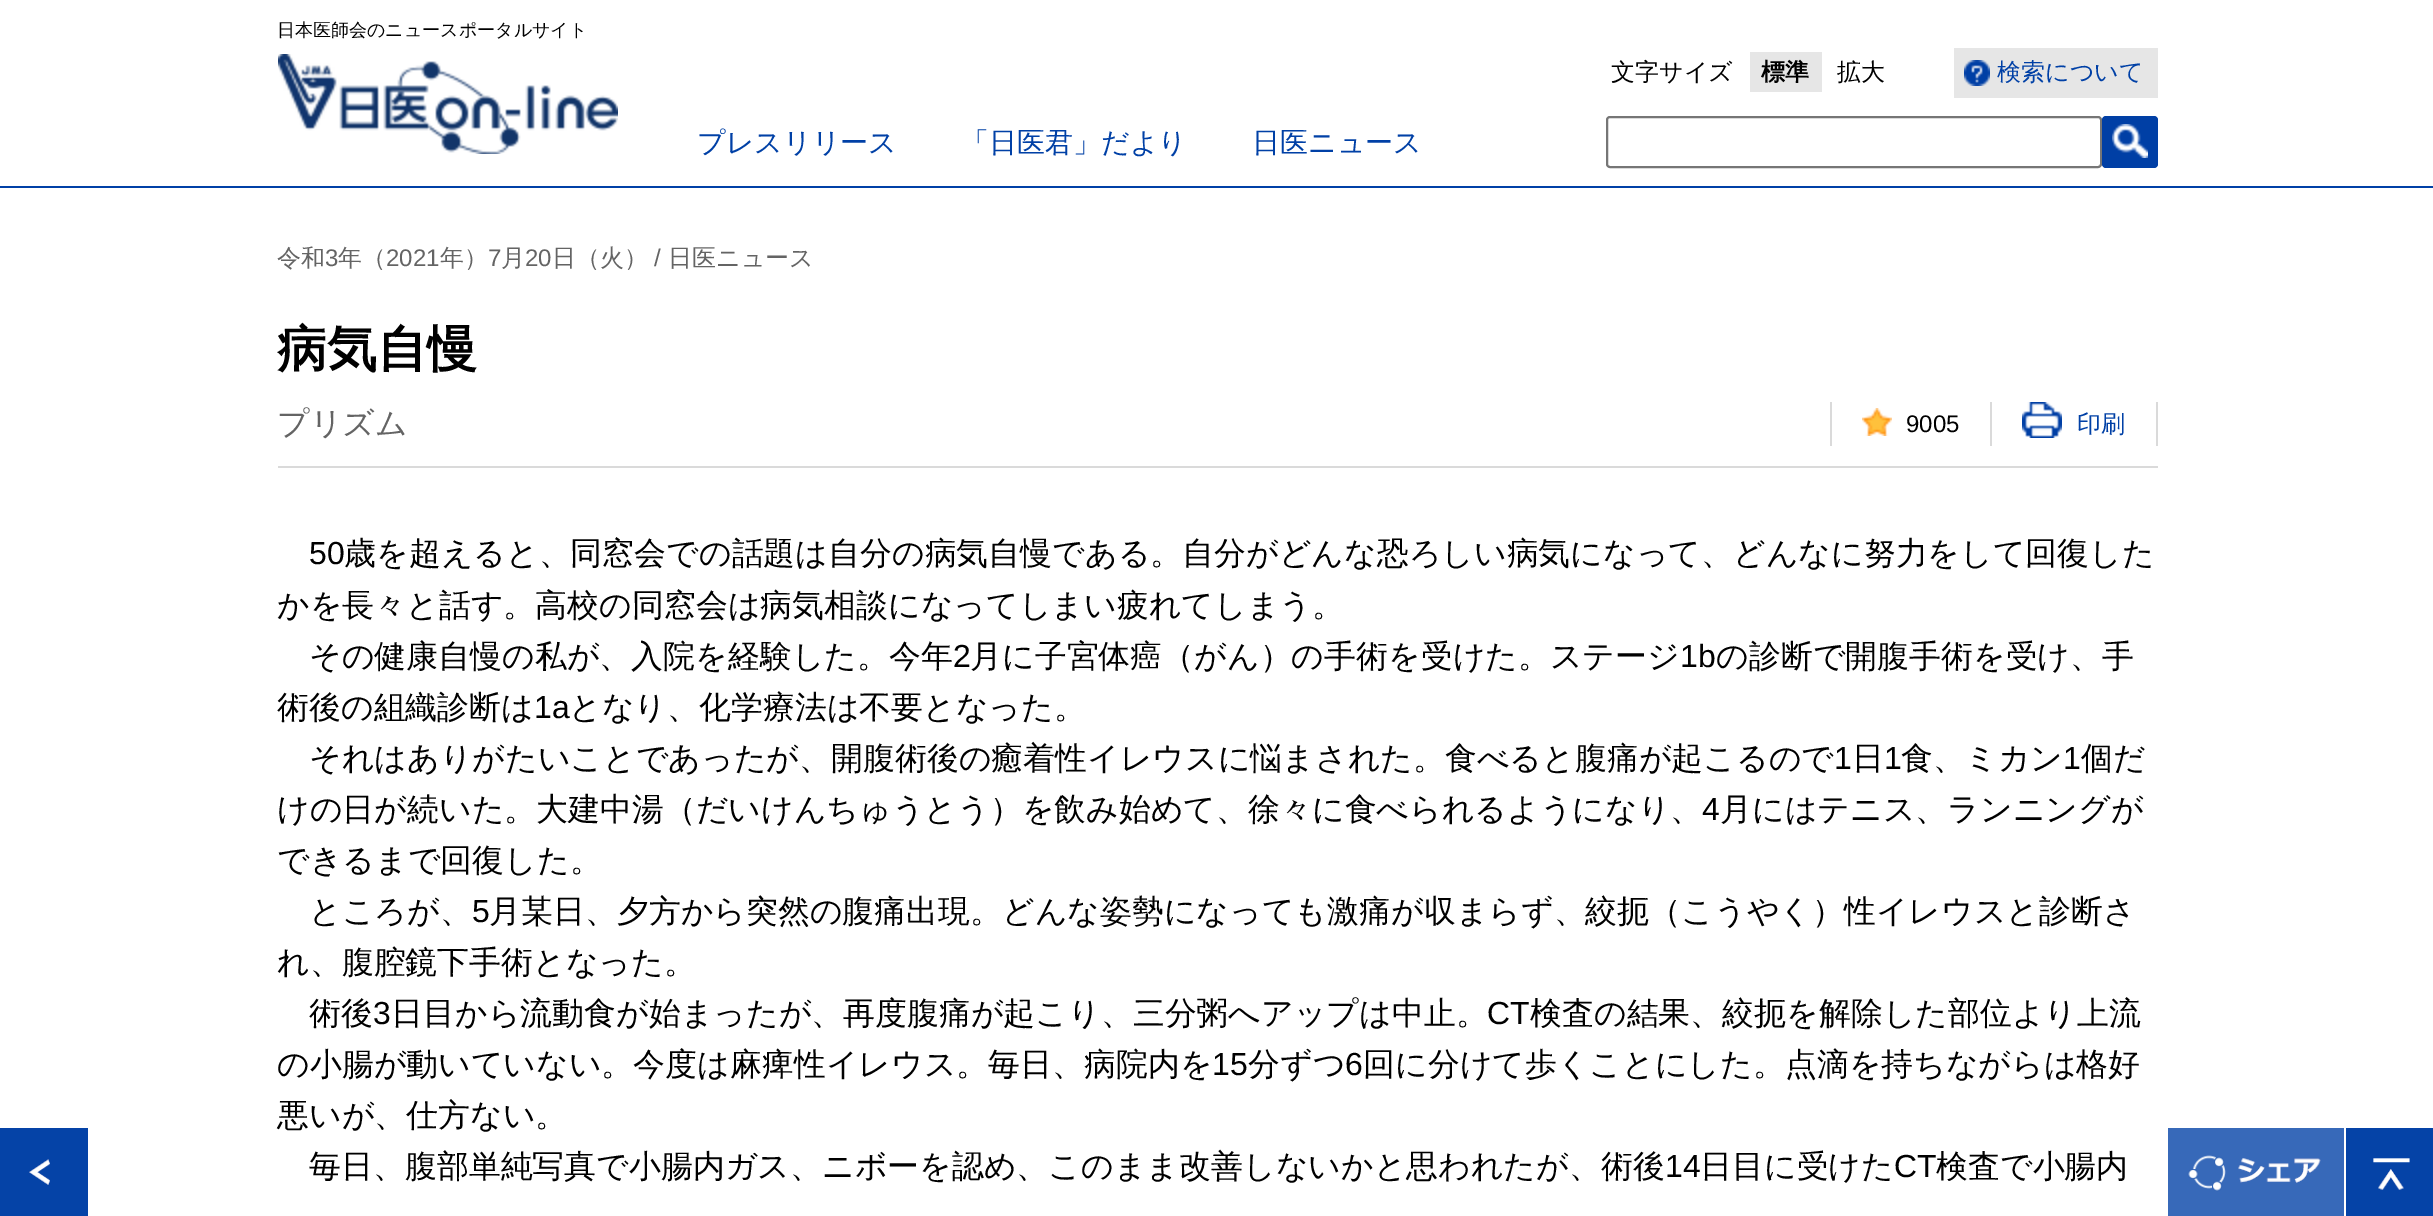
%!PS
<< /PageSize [2433 1216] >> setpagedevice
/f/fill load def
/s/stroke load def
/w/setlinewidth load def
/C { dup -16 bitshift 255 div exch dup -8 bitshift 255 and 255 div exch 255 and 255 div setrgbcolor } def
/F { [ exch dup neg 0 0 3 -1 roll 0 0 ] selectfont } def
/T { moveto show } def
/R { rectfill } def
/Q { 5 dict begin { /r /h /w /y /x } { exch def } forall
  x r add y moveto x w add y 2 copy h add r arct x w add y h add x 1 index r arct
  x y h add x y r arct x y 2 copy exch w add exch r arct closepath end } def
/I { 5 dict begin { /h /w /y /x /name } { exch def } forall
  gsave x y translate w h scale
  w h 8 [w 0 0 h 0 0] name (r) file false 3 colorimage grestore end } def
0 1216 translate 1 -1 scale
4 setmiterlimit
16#FFFFFF C
0 0 2433 1216 R
16#0040A6 C
0 186 2433 2 R
/WenQuanYiZenHei-Medium 18 F
16#000000 C
(日本医師会のニュースポータルサイト) 277 36 T
(1.rgb) 278 54 340 100 I
/WenQuanYiZenHei-Medium 24 F
(文字サイズ) 1611 80 T
16#E6E6E6 C
1750 52 72 40 R
/WenQuanYiZenHei-Bold 24 F
16#000000 C
(標準) 1761 80 T
/WenQuanYiZenHei-Medium 24 F
(拡大) 1837 80 T
16#E6E6E6 C
1954 48 204 50 R
(2.rgb) 1964 60 26 26 I
16#0040A6 C
(検索について) 1997 80 T
16#767676 C
2 w
1607 117 494 50 3 Q s
16#003FA5 C
2102 116 56 52 4 Q f
(3.rgb) 2112 124 36 34 I
/WenQuanYiZenHei-Medium 28 F
16#0040A6 C
(プレスリリース) 697 152 T
(「日医君」だより) 961 152 T
(日医ニュース) 1252 152 T
/WenQuanYiZenHei-Medium 24 F
16#646464 C
(令和) 277 266 T
/LiberationSans-Regular 24 F
(3) 325 266 T
/WenQuanYiZenHei-Medium 24 F
(年（) 338 266 T
/LiberationSans-Regular 24 F
(2021) 386 266 T
/WenQuanYiZenHei-Medium 24 F
(年）) 440 266 T
/LiberationSans-Regular 24 F
(7) 488 266 T
/WenQuanYiZenHei-Medium 24 F
(月) 501 266 T
/LiberationSans-Regular 24 F
(20) 525 266 T
/WenQuanYiZenHei-Medium 24 F
(日（火）) 552 266 T
/LiberationSans-Regular 24 F
(/) 654 266 T
/WenQuanYiZenHei-Medium 24 F
(日医ニュース) 668 266 T
/WenQuanYiZenHei-Bold 50 F
16#000000 C
(病気自慢) 277 366 T
/WenQuanYiZenHei-Medium 31.92 F
16#646464 C
(プリズム) 277 434 T
16#DADADA C
1830 402 2 44 R
(4.rgb) 1862 408 30 28 I
/LiberationSans-Regular 24 F
16#000000 C
(9005) 1906 432 T
16#DADADA C
2156 402 2 44 R
1990 402 2 44 R
(5.rgb) 2022 402 40 36 I
/WenQuanYiZenHei-Medium 24 F
16#0040A6 C
(印刷) 2077 432 T
16#DADADA C
278 466 1880 2 R
/LiberationSans-Regular 31.92 F
16#000000 C
(50) 309 564 T
/WenQuanYiZenHei-Medium 31.92 F
(歳を超えると、同窓会での話題は自分の病気自慢である。自分がどんな恐ろしい病気になって、どんなに努力をして回復した) 344 564 T
(かを長々と話す。高校の同窓会は病気相談になってしまい疲れてしまう。) 277 616 T
(その健康自慢の私が、入院を経験した。今年) 309 667 T
/LiberationSans-Regular 31.92 F
(2) 953 667 T
/WenQuanYiZenHei-Medium 31.92 F
(月に子宮体癌（がん）の手術を受けた。ステージ) 970 667 T
/LiberationSans-Regular 31.92 F
(1b) 1680 667 T
/WenQuanYiZenHei-Medium 31.92 F
(の診断で開腹手術を受け、手) 1716 667 T
(術後の組織診断は) 277 718 T
/LiberationSans-Regular 31.92 F
(1a) 534 718 T
/WenQuanYiZenHei-Medium 31.92 F
(となり、化学療法は不要となった。) 569 718 T
(それはありがたいことであったが、開腹術後の癒着性イレウスに悩まされた。食べると腹痛が起こるので) 309 769 T
/LiberationSans-Regular 31.92 F
(1) 1834 769 T
/WenQuanYiZenHei-Medium 31.92 F
(日) 1852 769 T
/LiberationSans-Regular 31.92 F
(1) 1884 769 T
/WenQuanYiZenHei-Medium 31.92 F
(食、ミカン) 1901 769 T
/LiberationSans-Regular 31.92 F
(1) 2063 769 T
/WenQuanYiZenHei-Medium 31.92 F
(個だ) 2081 769 T
(けの日が続いた。大建中湯（だいけんちゅうとう）を飲み始めて、徐々に食べられるようになり、) 277 820 T
/LiberationSans-Regular 31.92 F
(4) 1702 820 T
/WenQuanYiZenHei-Medium 31.92 F
(月にはテニス、ランニングが) 1720 820 T
(できるまで回復した。) 277 871 T
(ところが、) 309 922 T
/LiberationSans-Regular 31.92 F
(5) 472 922 T
/WenQuanYiZenHei-Medium 31.92 F
(月某日、夕方から突然の腹痛出現。どんな姿勢になっても激痛が収まらず、絞扼（こうやく）性イレウスと診断さ) 489 922 T
(れ、腹腔鏡下手術となった。) 277 973 T
(術後) 309 1024 T
/LiberationSans-Regular 31.92 F
(3) 373 1024 T
/WenQuanYiZenHei-Medium 31.92 F
(日目から流動食が始まったが、再度腹痛が起こり、三分粥へアップは中止。) 391 1024 T
/LiberationSans-Regular 31.92 F
(CT) 1487 1024 T
/WenQuanYiZenHei-Medium 31.92 F
(検査の結果、絞扼を解除した部位より上流) 1530 1024 T
(の小腸が動いていない。今度は麻痺性イレウス。毎日、病院内を) 277 1075 T
/LiberationSans-Regular 31.92 F
(15) 1212 1075 T
/WenQuanYiZenHei-Medium 31.92 F
(分ずつ) 1248 1075 T
/LiberationSans-Regular 31.92 F
(6) 1345 1075 T
/WenQuanYiZenHei-Medium 31.92 F
(回に分けて歩くことにした。点滴を持ちながらは格好) 1363 1075 T
(悪いが、仕方ない。) 277 1126 T
(毎日、腹部単純写真で小腸内ガス、ニボーを認め、このまま改善しないかと思われたが、術後) 309 1177 T
/LiberationSans-Regular 31.92 F
(14) 1665 1177 T
/WenQuanYiZenHei-Medium 31.92 F
(日目に受けた) 1700 1177 T
/LiberationSans-Regular 31.92 F
(CT) 1894 1177 T
/WenQuanYiZenHei-Medium 31.92 F
(検査で小腸内) 1936 1177 T
(6.rgb) 0 1128 88 88 I
(7.rgb) 2168 1128 176 88 I
(8.rgb) 2346 1128 87 88 I
showpage
